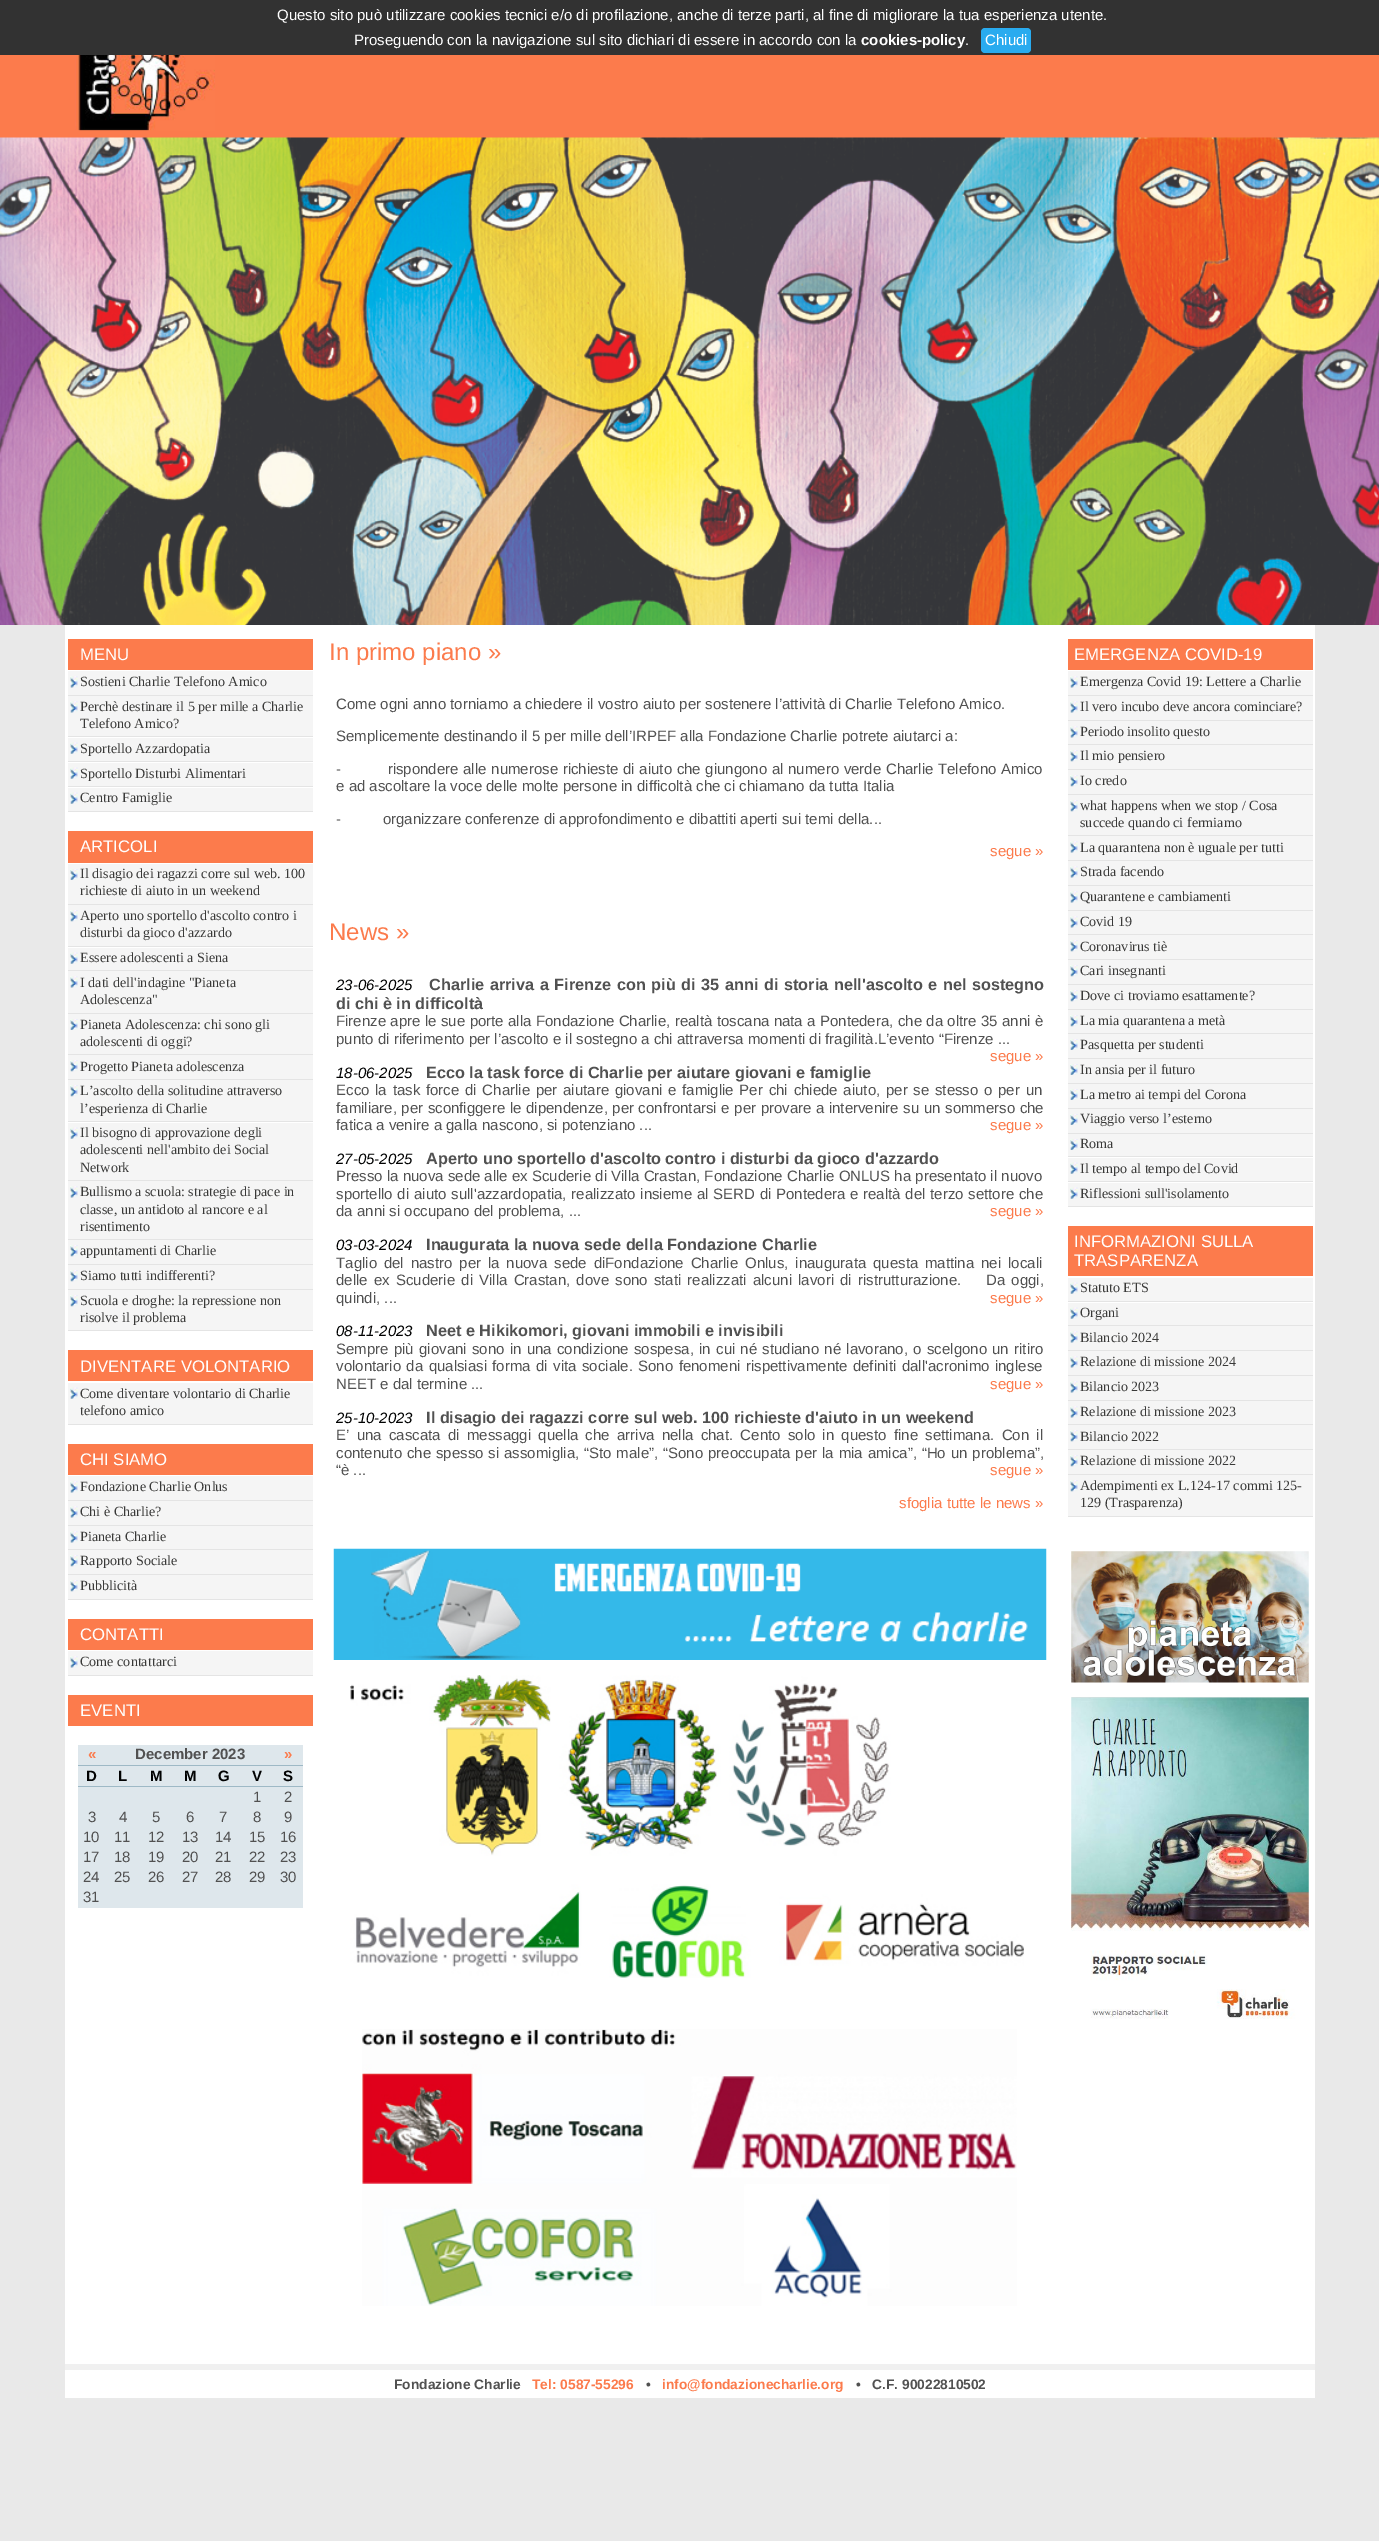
%!PS
<< /PageSize [1379 2541] >> setpagedevice
/m/moveto load def
/f/fill load def
/C { dup -16 bitshift 255 div exch dup -8 bitshift 255 and 255 div exch 255 and 255 div setrgbcolor } def
/F { [ exch dup neg 0 0 3 -1 roll 0 0 ] selectfont } def
/T { moveto show } def
/R { rectfill } def
/Q { 5 dict begin { /r /h /w /y /x } { exch def } forall
  x r add y moveto x w add y 2 copy h add r arct x w add y h add x 1 index r arct
  x y h add x y r arct x y 2 copy exch w add exch r arct closepath end } def
/I { 5 dict begin { /h /w /y /x /name } { exch def } forall
  gsave x y translate w h scale
  w h 8 [w 0 0 h 0 0] name (r) file false 3 colorimage grestore end } def
0 2541 translate 1 -1 scale
4 setmiterlimit
16#E9E9E9 C
0 0 1379 2541 R
16#323232 C
0 0 1379 55 R
/LiberationSans-Regular 15 F
16#FFFFFF C
(Questo sito può utilizzare cookies tecnici e/o di profilazione, anche di terze parti, al fine di migliorare la tua esperienza utente.) 277 20 T
(Proseguendo con la navigazione sul sito dichiari di essere in accordo con la) 354 45 T
/LiberationSans-Bold 15 F
(cookies-policy) 861 45 T
/LiberationSans-Regular 15 F
(.) 965 45 T
16#29ABEF C
981 28 50 25 4 Q f
16#FFFFFF C
(Chiudi) 985 45 T
16#FC7B4C C
0 55 1379 83 R
(1.rgb) 75 55 140 76 I
(2.rgb) 0 137 1379 488 I
16#FFFFFF C
65 625 1250 1773 R
16#FC7B4C C
68 639 245 31 R
/LiberationSans-Regular 16.75 F
16#FFFFFF C
(MENU) 80 660 T
16#F5F5F5 C
68 671 245 24 R
(3.rgb) 70 676 8 12 I
16#E4E4E4 C
68 695 245 1 R
/LiberationSerif-Regular 14.1 F
16#393938 C
(Sostieni Charlie Telefono Amico) 80 686 T
16#F5F5F5 C
68 696 245 40 R
(3.rgb) 70 701 8 12 I
16#E4E4E4 C
68 736 245 1 R
16#393938 C
(Perchè destinare il 5 per mille a Charlie) 80 711 T
(Telefono Amico?) 80 728 T
16#F5F5F5 C
68 738 245 23 R
(4.rgb) 70 742 8 12 I
16#E4E4E4 C
68 761 245 1 R
16#393938 C
(Sportello Azzardopatia) 80 753 T
16#F5F5F5 C
68 763 245 23 R
(4.rgb) 70 767 8 12 I
16#E4E4E4 C
68 786 245 1 R
16#393938 C
(Sportello Disturbi Alimentari) 80 778 T
16#F5F5F5 C
68 788 245 23 R
(4.rgb) 70 792 8 12 I
16#E4E4E4 C
68 811 245 1 R
16#393938 C
(Centro Famiglie) 80 802 T
16#FC7B4C C
68 831 245 32 R
/LiberationSans-Regular 16.75 F
16#FFFFFF C
(ARTICOLI) 80 852 T
16#F5F5F5 C
68 864 245 40 R
(5.rgb) 70 869 8 11 I
16#E4E4E4 C
68 904 245 1 R
/LiberationSerif-Regular 14.1 F
16#393938 C
(Il disagio dei ragazzi corre sul web. 100) 80 878 T
(richieste di aiuto in un weekend) 80 895 T
16#F5F5F5 C
68 905 245 41 R
(6.rgb) 70 910 8 12 I
16#E4E4E4 C
68 946 245 1 R
16#393938 C
(Aperto uno sportello d'ascolto contro i) 80 920 T
(disturbi da gioco d'azzardo) 80 937 T
16#F5F5F5 C
68 948 245 22 R
(4.rgb) 70 952 8 12 I
16#E4E4E4 C
68 970 245 1 R
16#393938 C
(Essere adolescenti a Siena) 80 962 T
16#F5F5F5 C
68 971 245 42 R
(3.rgb) 70 976 8 12 I
16#E4E4E4 C
68 1013 245 1 R
16#393938 C
(I dati dell'indagine "Pianeta) 80 987 T
(Adolescenza") 80 1004 T
16#F5F5F5 C
68 1014 245 40 R
(5.rgb) 70 1019 8 11 I
16#E4E4E4 C
68 1054 245 1 R
16#393938 C
(Pianeta Adolescenza: chi sono gli) 80 1029 T
(adolescenti di oggi?) 80 1046 T
16#F5F5F5 C
68 1055 245 24 R
(6.rgb) 70 1060 8 12 I
16#E4E4E4 C
68 1079 245 1 R
16#393938 C
(Progetto Pianeta adolescenza) 80 1071 T
16#F5F5F5 C
68 1080 245 41 R
(6.rgb) 70 1085 8 12 I
16#E4E4E4 C
68 1121 245 1 R
16#393938 C
(L’ascolto della solitudine attraverso) 80 1095 T
(l’esperienza di Charlie) 80 1113 T
16#F5F5F5 C
68 1123 245 57 R
(4.rgb) 70 1127 8 12 I
16#E4E4E4 C
68 1180 245 1 R
16#393938 C
(Il bisogno di approvazione degli) 80 1137 T
(adolescenti nell'ambito dei Social) 80 1154 T
(Network) 80 1172 T
16#F5F5F5 C
68 1181 245 58 R
(3.rgb) 70 1186 8 12 I
16#E4E4E4 C
68 1239 245 1 R
16#393938 C
(Bullismo a scuola: strategie di pace in) 80 1196 T
(classe, un antidoto al rancore e al) 80 1214 T
(risentimento) 80 1231 T
16#F5F5F5 C
68 1240 245 24 R
(6.rgb) 70 1245 8 12 I
16#E4E4E4 C
68 1264 245 1 R
16#393938 C
(appuntamenti di Charlie) 80 1255 T
16#F5F5F5 C
68 1265 245 24 R
(6.rgb) 70 1270 8 12 I
16#E4E4E4 C
68 1289 245 1 R
16#393938 C
(Siamo tutti indifferenti?) 80 1280 T
16#F5F5F5 C
68 1290 245 40 R
(6.rgb) 70 1295 8 12 I
16#E4E4E4 C
68 1330 245 1 R
16#393938 C
(Scuola e droghe: la repressione non) 80 1305 T
(risolve il problema) 80 1322 T
16#FC7B4C C
68 1350 245 31 R
/LiberationSans-Regular 16.75 F
16#FFFFFF C
(DIVENTARE VOLONTARIO) 80 1372 T
16#F5F5F5 C
68 1383 245 41 R
(4.rgb) 70 1387 8 12 I
16#E4E4E4 C
68 1424 245 1 R
/LiberationSerif-Regular 14.1 F
16#393938 C
(Come diventare volontario di Charlie) 80 1398 T
(telefono amico) 80 1415 T
16#FC7B4C C
68 1444 245 31 R
/LiberationSans-Regular 16.75 F
16#FFFFFF C
(CHI SIAMO) 80 1465 T
16#F5F5F5 C
68 1476 245 24 R
(3.rgb) 70 1481 8 12 I
16#E4E4E4 C
68 1500 245 1 R
/LiberationSerif-Regular 14.1 F
16#393938 C
(Fondazione Charlie Onlus) 80 1491 T
16#F5F5F5 C
68 1501 245 24 R
(3.rgb) 70 1506 8 12 I
16#E4E4E4 C
68 1525 245 1 R
16#393938 C
(Chi è Charlie?) 80 1516 T
16#F5F5F5 C
68 1526 245 23 R
(3.rgb) 70 1531 8 12 I
16#E4E4E4 C
68 1549 245 1 R
16#393938 C
(Pianeta Charlie) 80 1541 T
16#F5F5F5 C
68 1550 245 24 R
(6.rgb) 70 1555 8 12 I
16#E4E4E4 C
68 1574 245 1 R
16#393938 C
(Rapporto Sociale) 80 1565 T
16#F5F5F5 C
68 1575 245 24 R
(6.rgb) 70 1580 8 12 I
16#E4E4E4 C
68 1599 245 1 R
16#393938 C
(Pubblicità) 80 1590 T
16#FC7B4C C
68 1619 245 31 R
/LiberationSans-Regular 16.75 F
16#FFFFFF C
(CONTATTI) 80 1640 T
16#F5F5F5 C
68 1651 245 24 R
(3.rgb) 70 1656 8 12 I
16#E4E4E4 C
68 1675 245 1 R
/LiberationSerif-Regular 14.1 F
16#393938 C
(Come contattarci) 80 1666 T
16#FC7B4C C
68 1695 245 31 R
/LiberationSans-Regular 16.75 F
16#FFFFFF C
(EVENTI) 80 1716 T
16#DEE7EC C
78 1745 225 20 R
16#9EB9C6 C
78 1765 225 1 R
/LiberationSans-Bold 15 F
16#FC7B4C C
(«) 88 1759 T
16#515151 C
(December 2023) 135 1759 T
16#FC7B4C C
(») 284 1759 T
16#DEE7EC C
78 1766 225 142 R
16#9EB9C6 C
78 1786 225 1 R
16#010202 C
(D) 86 1781 T
(L) 118 1781 T
(M) 150 1781 T
(M) 184 1781 T
(G) 218 1781 T
(V) 252 1781 T
(S) 283 1781 T
/LiberationSans-Regular 15 F
16#515151 C
(1) 253 1802 T
(2) 284 1802 T
(3) 88 1822 T
(4) 119 1822 T
(5) 152 1822 T
(6) 186 1822 T
(7) 219 1822 T
(8) 253 1822 T
(9) 284 1822 T
(10) 83 1842 T
(11) 114 1842 T
(12) 148 1842 T
(13) 182 1842 T
(14) 215 1842 T
(15) 249 1842 T
(16) 280 1842 T
(17) 83 1862 T
(18) 114 1862 T
(19) 148 1862 T
(20) 182 1862 T
(21) 215 1862 T
(22) 249 1862 T
(23) 280 1862 T
(24) 83 1882 T
(25) 114 1882 T
(26) 148 1882 T
(27) 182 1882 T
(28) 215 1882 T
(29) 249 1882 T
(30) 280 1882 T
(31) 83 1902 T
/LiberationSans-Regular 24 F
16#FC7B4C C
(In primo piano ») 329 660 T
/LiberationSans-Regular 15 F
16#515151 C
(Come ogni anno torniamo a chiedere il vostro aiuto per sostenere l’attività di Charlie Telefono Amico.) 336 709 T
(Semplicemente destinando il 5 per mille dell’IRPEF alla Fondazione Charlie potrete aiutarci a:) 336 741 T
336 774 m .5 0 32 (-          rispondere alle numerose richieste di aiuto che giungono al numero verde Charlie Telefono Amico) widthshow
(e ad ascoltare la voce delle molte persone in difficoltà che ci chiamano da tutta Italia) 336 791 T
(-          organizzare conferenze di approfondimento e dibattiti aperti sui temi della...) 336 824 T
16#FC7B4C C
(segue ») 990 856 T
/LiberationSans-Regular 24 F
(News ») 329 940 T
/LiberationSans-Italic 15 F
16#010202 C
(23-06-2025) 336 990 T
/LiberationSans-Bold 16.25 F
16#515151 C
429 990 m 1.1 0 32 (Charlie arriva a Firenze con più di 35 anni di storia nell'ascolto e nel sostegno) widthshow
(di chi è in difficoltà) 336 1009 T
/LiberationSans-Regular 15 F
336 1026 m .25 0 32 (Firenze apre le sue porte alla Fondazione Charlie, realtà toscana nata a Pontedera, che da oltre 35 anni è) widthshow
(punto di riferimento per l’ascolto e il sostegno a chi attraversa momenti di fragilità.L’evento “Firenze ...) 336 1044 T
16#FC7B4C C
(segue ») 990 1061 T
/LiberationSans-Italic 15 F
16#010202 C
(18-06-2025) 336 1078 T
/LiberationSans-Bold 16.25 F
16#515151 C
(Ecco la task force di Charlie per aiutare giovani e famiglie) 426 1078 T
/LiberationSans-Regular 15 F
336 1095 m 1.6 0 32 (Ecco la task force di Charlie per aiutare giovani e famiglie Per chi chiede aiuto, per se stesso o per un) widthshow
336 1113 m .4 0 32 (familiare, per sconfiggere le dipendenze, per confrontarsi e per provare a intervenire su un sommerso che) widthshow
(fatica a venire a galla nascono, si potenziano ...) 336 1130 T
16#FC7B4C C
(segue ») 990 1130 T
/LiberationSans-Italic 15 F
16#010202 C
(27-05-2025) 336 1164 T
/LiberationSans-Bold 16.25 F
16#515151 C
(Aperto uno sportello d'ascolto contro i disturbi da gioco d'azzardo) 426 1164 T
/LiberationSans-Regular 15 F
(Presso la nuova sede alle ex Scuderie di Villa Crastan, Fondazione Charlie ONLUS ha presentato il nuovo) 336 1181 T
336 1199 m .6 0 32 (sportello di aiuto sull'azzardopatia, realizzato insieme al SERD di Pontedera e realtà del terzo settore che) widthshow
(da anni si occupano del problema, ...) 336 1216 T
16#FC7B4C C
(segue ») 990 1216 T
/LiberationSans-Italic 15 F
16#010202 C
(03-03-2024) 336 1250 T
/LiberationSans-Bold 16.25 F
16#515151 C
(Inaugurata la nuova sede della Fondazione Charlie) 426 1250 T
/LiberationSans-Regular 15 F
336 1268 m 2.75 0 32 (Taglio del nastro per la nuova sede diFondazione Charlie Onlus, inaugurata questa mattina nei locali) widthshow
336 1285 m 2 0 32 (delle ex Scuderie di Villa Crastan, dove sono stati realizzati alcuni lavori di ristrutturazione.    Da oggi,) widthshow
(quindi, ...) 336 1303 T
16#FC7B4C C
(segue ») 990 1303 T
/LiberationSans-Italic 15 F
16#010202 C
(08-11-2023) 336 1336 T
/LiberationSans-Bold 16.25 F
16#515151 C
(Neet e Hikikomori, giovani immobili e invisibili) 426 1336 T
/LiberationSans-Regular 15 F
336 1354 m 1.1 0 32 (Sempre più giovani sono in una condizione sospesa, in cui né studiano né lavorano, o scelgono un ritiro) widthshow
336 1371 m 1.25 0 32 (volontario da qualsiasi forma di vita sociale. Sono fenomeni rispettivamente definiti dall'acronimo inglese) widthshow
(NEET e dal termine ...) 336 1389 T
16#FC7B4C C
(segue ») 990 1389 T
/LiberationSans-Italic 15 F
16#010202 C
(25-10-2023) 336 1423 T
/LiberationSans-Bold 16.25 F
16#515151 C
(Il disagio dei ragazzi corre sul web. 100 richieste d'aiuto in un weekend) 426 1423 T
/LiberationSans-Regular 15 F
336 1440 m 3.1 0 32 (E’ una cascata di messaggi quella che arriva nella chat. Cento solo in questo fine settimana. Con il) widthshow
336 1458 m .75 0 32 (contenuto che spesso si assomiglia, “Sto male”, “Sono preoccupata per la mia amica”, “Ho un problema”,) widthshow
(“è ...) 336 1475 T
16#FC7B4C C
(segue ») 990 1475 T
(sfoglia tutte le news ») 899 1508 T
(7.rgb) 333 1548 714 112 I
(8.rgb) 350 1675 674 303 I
(9.rgb) 362 2029 655 277 I
1068 639 245 31 R
/LiberationSans-Regular 16.75 F
16#FFFFFF C
(EMERGENZA COVID-19) 1074 660 T
16#F5F5F5 C
1068 671 245 24 R
(3.rgb) 1070 676 8 12 I
16#E4E4E4 C
1068 695 245 1 R
/LiberationSerif-Regular 14.1 F
16#393938 C
(Emergenza Covid 19: Lettere a Charlie) 1080 686 T
16#F5F5F5 C
1068 696 245 24 R
(3.rgb) 1070 701 8 12 I
16#E4E4E4 C
1068 720 245 1 R
16#393938 C
(Il vero incubo deve ancora cominciare?) 1080 711 T
16#F5F5F5 C
1068 721 245 23 R
(3.rgb) 1070 726 8 12 I
16#E4E4E4 C
1068 744 245 1 R
16#393938 C
(Periodo insolito questo) 1080 736 T
16#F5F5F5 C
1068 745 245 24 R
(6.rgb) 1070 750 8 12 I
16#E4E4E4 C
1068 769 245 1 R
16#393938 C
(Il mio pensiero) 1080 760 T
16#F5F5F5 C
1068 770 245 24 R
(10.rgb) 1070 775 8 12 I
16#E4E4E4 C
1068 794 245 1 R
16#393938 C
(Io credo) 1080 785 T
16#F5F5F5 C
1068 795 245 40 R
(6.rgb) 1070 800 8 12 I
16#E4E4E4 C
1068 835 245 1 R
16#393938 C
(what happens when we stop / Cosa) 1080 810 T
(succede quando ci fermiamo) 1080 827 T
16#F5F5F5 C
1068 836 245 24 R
(3.rgb) 1070 841 8 12 I
16#E4E4E4 C
1068 860 245 1 R
16#393938 C
(La quarantena non è uguale per tutti) 1080 852 T
16#F5F5F5 C
1068 861 245 24 R
(3.rgb) 1070 866 8 12 I
16#E4E4E4 C
1068 885 245 1 R
16#393938 C
(Strada facendo) 1080 876 T
16#F5F5F5 C
1068 886 245 24 R
(3.rgb) 1070 891 8 12 I
16#E4E4E4 C
1068 910 245 1 R
16#393938 C
(Quarantene e cambiamenti) 1080 901 T
16#F5F5F5 C
1068 911 245 23 R
(3.rgb) 1070 916 8 12 I
16#E4E4E4 C
1068 934 245 1 R
16#393938 C
(Covid 19) 1080 926 T
16#F5F5F5 C
1068 935 245 24 R
(6.rgb) 1070 940 8 12 I
16#E4E4E4 C
1068 959 245 1 R
16#393938 C
(Coronavirus tiè) 1080 951 T
16#F5F5F5 C
1068 960 245 24 R
(6.rgb) 1070 965 8 12 I
16#E4E4E4 C
1068 984 245 1 R
16#393938 C
(Cari insegnanti) 1080 975 T
16#F5F5F5 C
1068 985 245 24 R
(6.rgb) 1070 990 8 12 I
16#E4E4E4 C
1068 1009 245 1 R
16#393938 C
(Dove ci troviamo esattamente?) 1080 1000 T
16#F5F5F5 C
1068 1010 245 23 R
(6.rgb) 1070 1015 8 12 I
16#E4E4E4 C
1068 1033 245 1 R
16#393938 C
(La mia quarantena a metà) 1080 1025 T
16#F5F5F5 C
1068 1034 245 24 R
(5.rgb) 1070 1039 8 11 I
16#E4E4E4 C
1068 1058 245 1 R
16#393938 C
(Pasquetta per studenti) 1080 1049 T
16#F5F5F5 C
1068 1059 245 24 R
(5.rgb) 1070 1064 8 11 I
16#E4E4E4 C
1068 1083 245 1 R
16#393938 C
(In ansia per il futuro) 1080 1074 T
16#F5F5F5 C
1068 1084 245 24 R
(5.rgb) 1070 1089 8 11 I
16#E4E4E4 C
1068 1108 245 1 R
16#393938 C
(La metro ai tempi del Corona) 1080 1099 T
16#F5F5F5 C
1068 1109 245 24 R
(5.rgb) 1070 1114 8 11 I
16#E4E4E4 C
1068 1133 245 1 R
16#393938 C
(Viaggio verso l’esterno) 1080 1123 T
16#F5F5F5 C
1068 1134 245 22 R
(5.rgb) 1070 1139 8 11 I
16#E4E4E4 C
1068 1156 245 1 R
16#393938 C
(Roma) 1080 1148 T
16#F5F5F5 C
1068 1158 245 23 R
(4.rgb) 1070 1162 8 12 I
16#E4E4E4 C
1068 1181 245 1 R
16#393938 C
(Il tempo al tempo del Covid) 1080 1173 T
16#F5F5F5 C
1068 1183 245 23 R
(4.rgb) 1070 1187 8 12 I
16#E4E4E4 C
1068 1206 245 1 R
16#393938 C
(Riflessioni sull'isolamento) 1080 1198 T
16#FC7B4C C
1068 1226 245 50 R
/LiberationSans-Regular 16.75 F
16#FFFFFF C
(INFORMAZIONI SULLA) 1074 1247 T
(TRASPARENZA) 1074 1266 T
16#F5F5F5 C
1068 1278 245 23 R
(4.rgb) 1070 1282 8 12 I
16#E4E4E4 C
1068 1301 245 1 R
/LiberationSerif-Regular 14.1 F
16#393938 C
(Statuto ETS) 1080 1292 T
16#F5F5F5 C
1068 1303 245 22 R
(4.rgb) 1070 1307 8 12 I
16#E4E4E4 C
1068 1325 245 1 R
16#393938 C
(Organi) 1080 1317 T
16#F5F5F5 C
1068 1326 245 24 R
(3.rgb) 1070 1331 8 12 I
16#E4E4E4 C
1068 1350 245 1 R
16#393938 C
(Bilancio 2024) 1080 1342 T
16#F5F5F5 C
1068 1351 245 24 R
(3.rgb) 1070 1356 8 12 I
16#E4E4E4 C
1068 1375 245 1 R
16#393938 C
(Relazione di missione 2024) 1080 1366 T
16#F5F5F5 C
1068 1376 245 24 R
(3.rgb) 1070 1381 8 12 I
16#E4E4E4 C
1068 1400 245 1 R
16#393938 C
(Bilancio 2023) 1080 1391 T
16#F5F5F5 C
1068 1401 245 23 R
(3.rgb) 1070 1406 8 12 I
16#E4E4E4 C
1068 1424 245 1 R
16#393938 C
(Relazione di missione 2023) 1080 1416 T
16#F5F5F5 C
1068 1425 245 24 R
(6.rgb) 1070 1430 8 12 I
16#E4E4E4 C
1068 1449 245 1 R
16#393938 C
(Bilancio 2022) 1080 1441 T
16#F5F5F5 C
1068 1450 245 24 R
(6.rgb) 1070 1455 8 12 I
16#E4E4E4 C
1068 1474 245 1 R
16#393938 C
(Relazione di missione 2022) 1080 1465 T
16#F5F5F5 C
1068 1475 245 41 R
(6.rgb) 1070 1480 8 12 I
16#E4E4E4 C
1068 1516 245 1 R
16#393938 C
(Adempimenti ex L.124-17 commi 125-) 1080 1490 T
(129 \(Trasparenza\)) 1080 1507 T
(11.rgb) 1071 1551 238 132 I
(12.rgb) 1071 1697 238 322 I
16#F0F0F0 C
65 2364 1250 6 R
/LiberationSans-Bold 13.75 F
16#515151 C
(Fondazione Charlie) 394 2389 T
16#FC7B4C C
(Tel: 0587-55296) 532 2389 T
16#515151 C
(•) 646 2389 T
16#FC7B4C C
(info@fondazionecharlie.org) 662 2389 T
16#515151 C
(•   C.F. 90022810502) 856 2389 T
showpage
